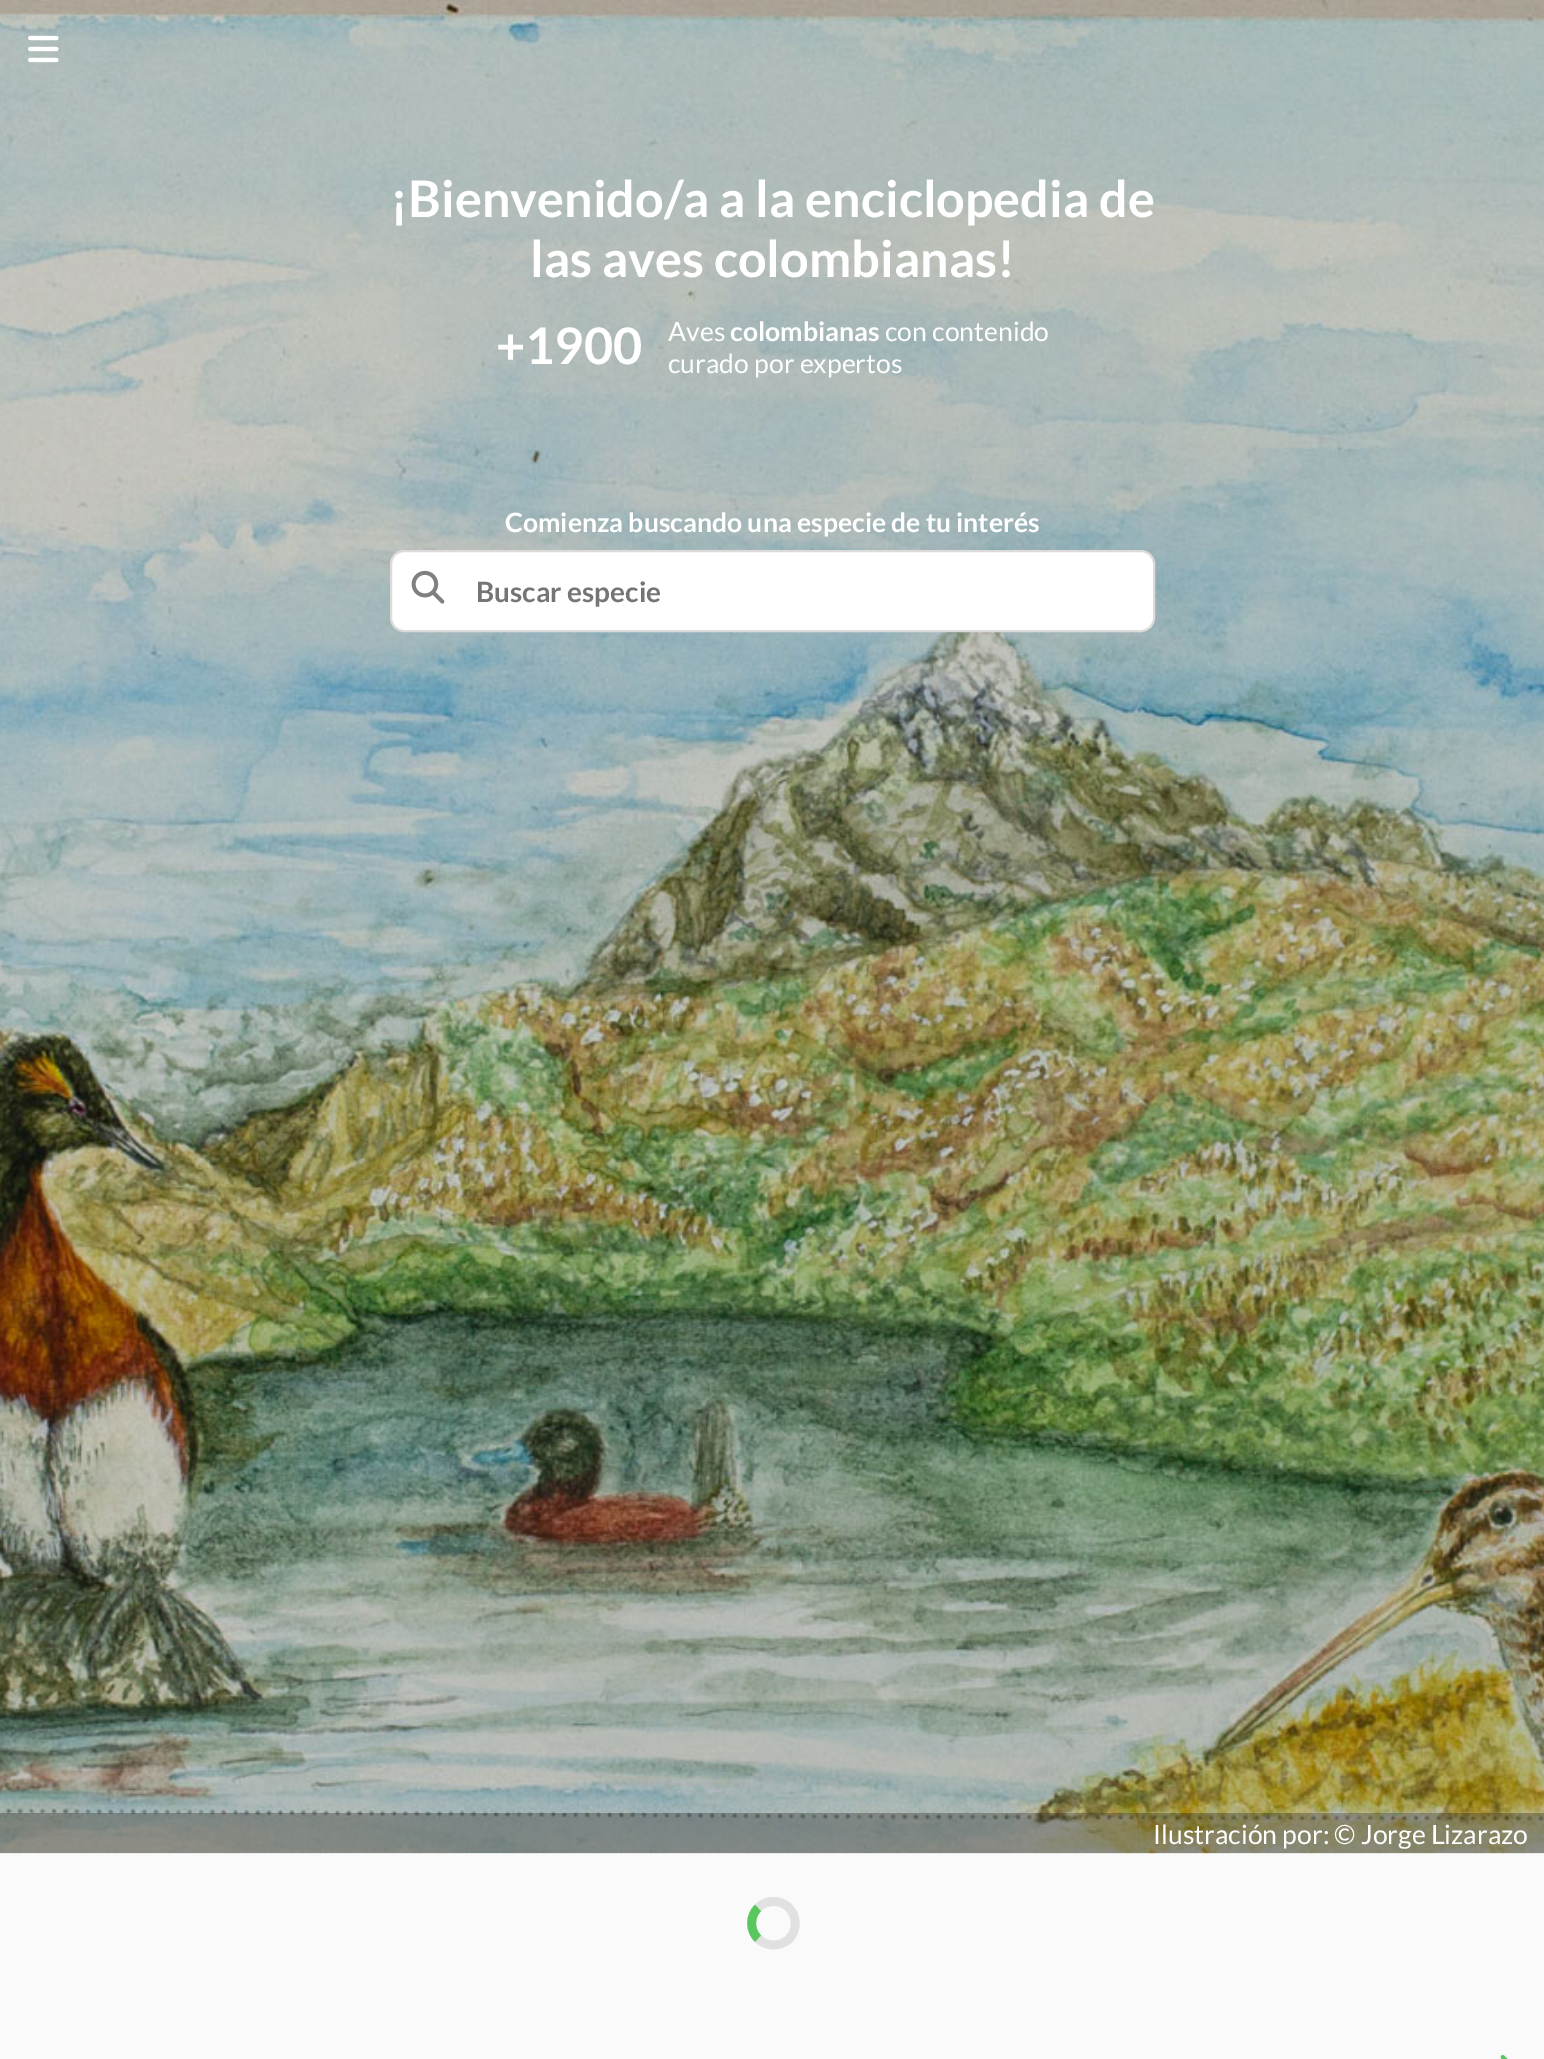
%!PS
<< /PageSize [1544 2059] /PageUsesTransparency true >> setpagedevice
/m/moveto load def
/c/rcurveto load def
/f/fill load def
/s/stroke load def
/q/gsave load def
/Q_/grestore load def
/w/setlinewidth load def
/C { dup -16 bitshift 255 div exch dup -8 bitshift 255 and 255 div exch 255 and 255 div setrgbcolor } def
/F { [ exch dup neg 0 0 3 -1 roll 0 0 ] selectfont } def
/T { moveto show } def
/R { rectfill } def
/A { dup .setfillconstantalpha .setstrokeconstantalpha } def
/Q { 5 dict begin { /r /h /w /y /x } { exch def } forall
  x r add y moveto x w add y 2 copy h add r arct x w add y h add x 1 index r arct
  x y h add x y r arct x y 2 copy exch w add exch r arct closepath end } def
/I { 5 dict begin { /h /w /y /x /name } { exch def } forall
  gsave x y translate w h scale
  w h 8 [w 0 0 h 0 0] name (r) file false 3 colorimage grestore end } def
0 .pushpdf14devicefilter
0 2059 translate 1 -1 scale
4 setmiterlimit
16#FAFAFA C
0 0 1544 2059 R
(3.rgb) 0 0 1544 1854 I
(1.rgb) 28 35 31 28 I
/Lato-Bold 50.4 F
16#FFFFFF C
(¡Bienvenido/a a la enciclopedia de) 390 217 T
(las aves colombianas!) 530 277 T
(+1900) 496 364 T
/Lato-Regular 26.6 F
(Aves) 668 341 T
/Lato-Bold 26.6 F
(colombianas) 730 341 T
/Lato-Regular 26.6 F
(con contenido) 885 341 T
(curado por expertos) 668 373 T
/Lato-Bold 26.6 F
(Comienza buscando una especie de tu interés) 505 532 T
391 551 763 80 13 Q q f Q_
16#DDDADA C
2 w
s
(2.rgb) 411 570 34 34 I
/Lato-Bold 28 F
16#757575 C
(Buscar especie) 476 602 T
0.3 A
16#1A170F C
0 1813 1544 40 R
/Lato-Regular 26.6 F
1 A
16#FFFFFF C
(Ilustración por: © Jorge Lizarazo) 1153 1844 T
16#E1E1E1 C
8.8 w
758 1908 m 4 -4.5 9.5 -6.5 15.5 -6.5 c 26 0 30 38 4.5 43 c -7.5 1.5 -15 -.5 -20 -6 c s
16#59C75D C
758 1938.5 m -8.5 -8 -8.5 -22.5 0 -30.5 c s
(4.rgb) 1500 2054 8 5 I
.poppdf14devicefilter showpage
